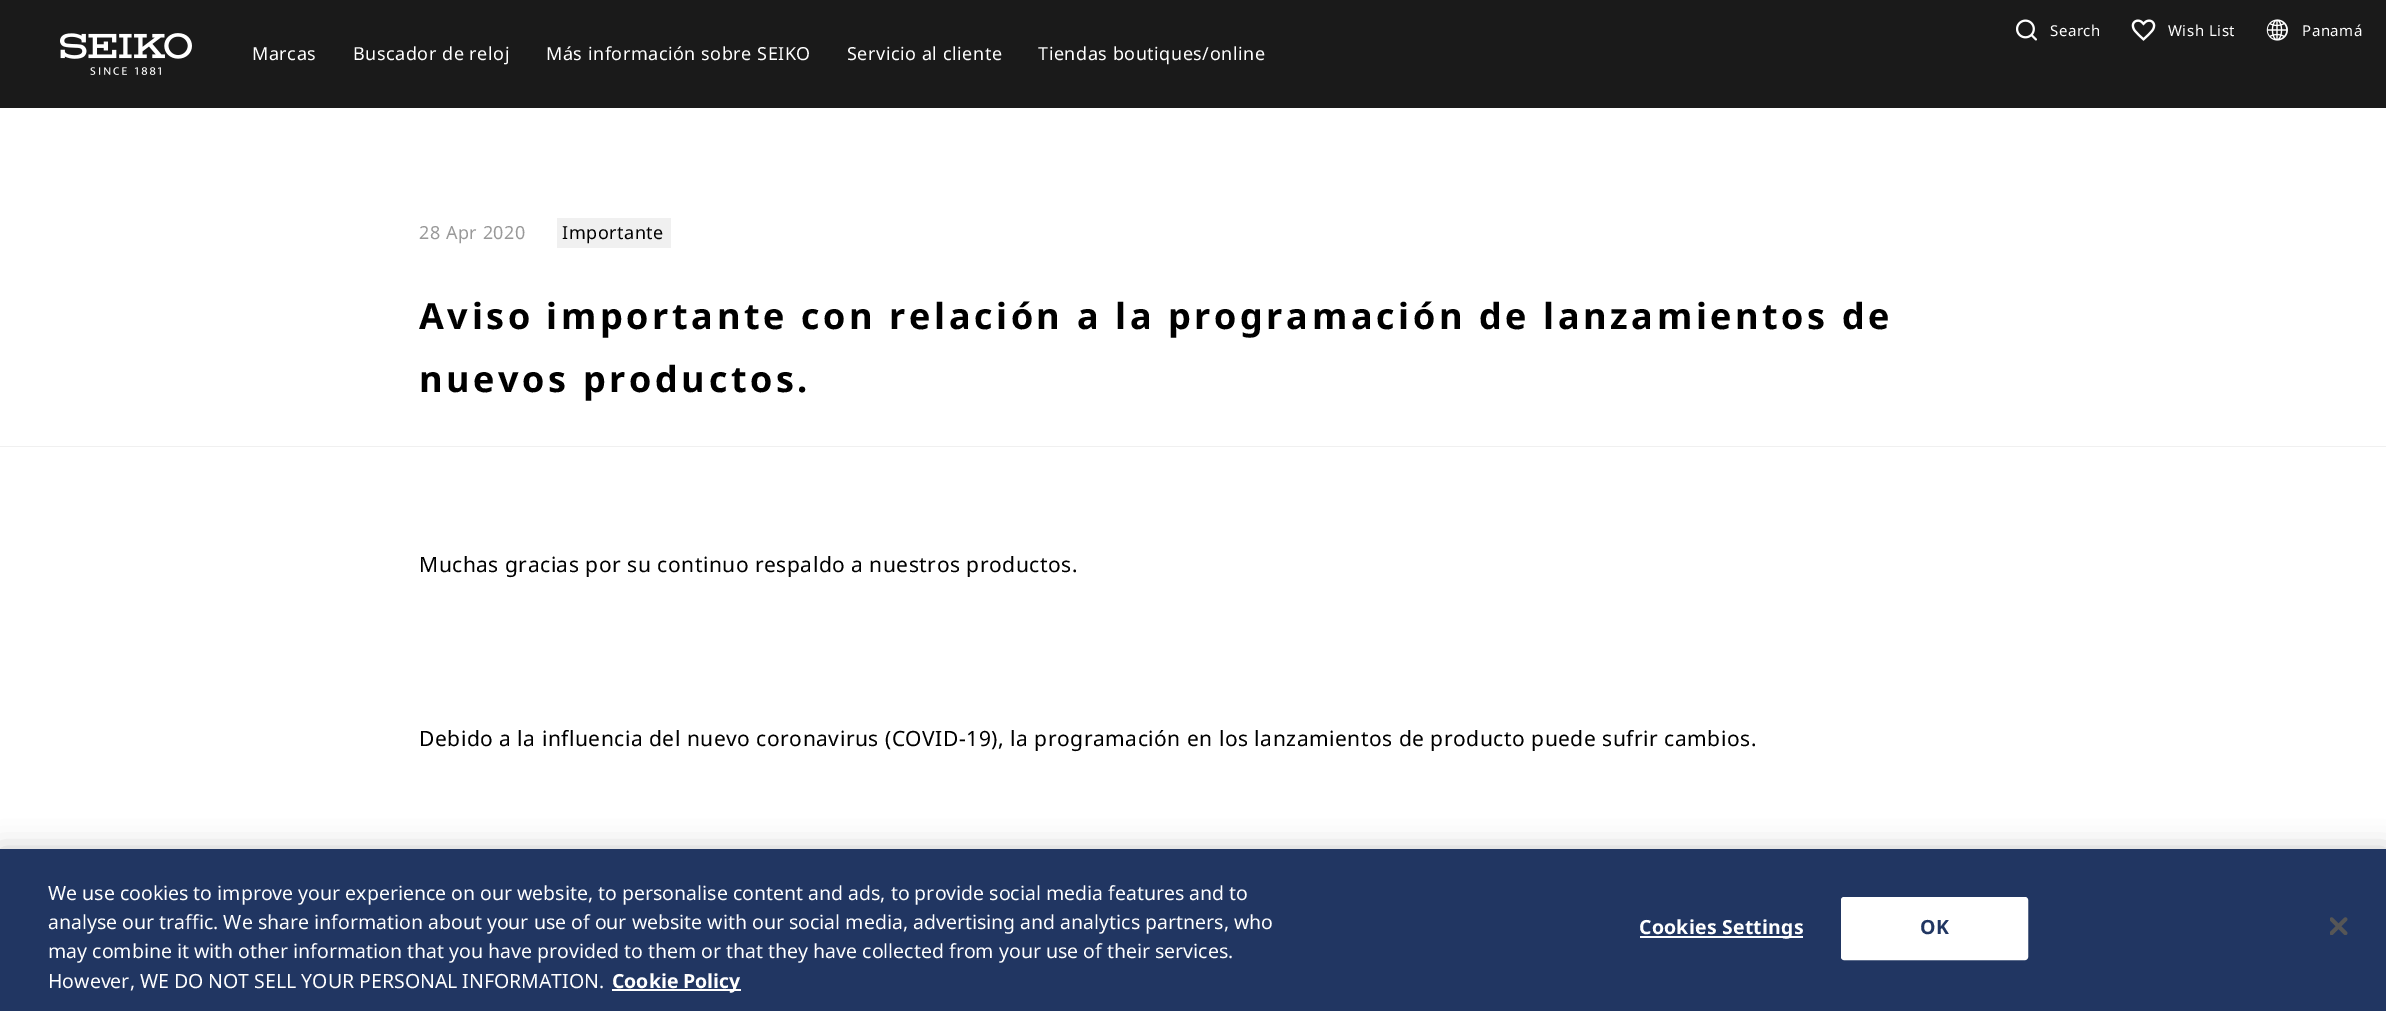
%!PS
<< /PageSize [2386 1011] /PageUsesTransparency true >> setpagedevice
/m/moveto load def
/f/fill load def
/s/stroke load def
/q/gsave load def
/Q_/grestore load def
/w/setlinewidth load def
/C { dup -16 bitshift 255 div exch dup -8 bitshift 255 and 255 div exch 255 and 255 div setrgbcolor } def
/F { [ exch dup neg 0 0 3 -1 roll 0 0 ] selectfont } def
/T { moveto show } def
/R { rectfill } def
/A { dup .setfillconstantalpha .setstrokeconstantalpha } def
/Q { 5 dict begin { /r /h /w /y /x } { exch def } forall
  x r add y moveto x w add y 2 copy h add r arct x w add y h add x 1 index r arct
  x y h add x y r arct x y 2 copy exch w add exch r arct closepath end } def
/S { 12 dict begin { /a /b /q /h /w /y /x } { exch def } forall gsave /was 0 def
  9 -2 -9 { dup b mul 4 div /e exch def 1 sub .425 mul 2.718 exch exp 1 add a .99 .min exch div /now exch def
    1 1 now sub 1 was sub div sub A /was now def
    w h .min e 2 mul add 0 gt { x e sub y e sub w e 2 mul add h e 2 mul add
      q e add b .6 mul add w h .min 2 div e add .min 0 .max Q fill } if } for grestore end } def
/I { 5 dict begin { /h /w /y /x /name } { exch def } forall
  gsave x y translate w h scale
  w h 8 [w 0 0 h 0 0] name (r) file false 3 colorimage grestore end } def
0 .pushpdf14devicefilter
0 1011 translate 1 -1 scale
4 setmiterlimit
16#FFFFFF C
0 0 2386 1011 R
16#1A1A1A C
0 0 2386 108 R
(1.rgb) 2016 19 21 22 I
/NotoSans-Regular 15 F
16#FFFFFF C
2050 36 m .52 0 (Search) ashow
(2.rgb) 2131 19 25 22 I
2168 36 m .52 0 (Wish List) ashow
(3.rgb) 2266 19 22 22 I
2302 36 m .52 0 (Panamá) ashow
(4.rgb) 60 33 132 42 I
/NotoSans-Regular 18 F
252 60 m .52 0 (Marcas) ashow
353 60 m .52 0 (Buscador de reloj) ashow
546 60 m .52 0 (Más información sobre SEIKO) ashow
847 60 m .52 0 (Servicio al cliente) ashow
1038 60 m .52 0 (Tiendas boutiques/online) ashow
16#F0F0F0 C
0 446 2386 1 R
16#999999 C
419 239 m .52 0 (28 Apr 2020) ashow
16#F0F0F0 C
557 218 114 30 R
16#000000 C
562 239 m .52 0 (Importante) ashow
/NotoSans-Bold 36 F
419 329 m 3.6 0 (Aviso importante con relación a la programación de lanzamientos de) ashow
419 392 m 3.6 0 (nuevos productos.) ashow
/NotoSans-Regular 21 F
419 572 m .52 0 (Muchas gracias por su continuo respaldo a nuestros productos.) ashow
419 746 m .52 0 (Debido a la influencia del nuevo coronavirus \(COVID-19\), la programación en los lanzamientos de producto puede sufrir cambios.) ashow
0 849 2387 162 0 13.5 .2 S
16#213662 C
0 849 2386 162 R
/NotoSans-Regular 19.5 F
16#FFFFFF C
(We use cookies to improve your experience on our website, to personalise content and ads, to provide social media features and to) 48 900 T
(analyse our traffic. We share information about your use of our website with our social media, advertising and analytics partners, who) 48 929 T
(may combine it with other information that you have provided to them or that they have collected from your use of their services.) 48 958 T
(However, WE DO NOT SELL YOUR PERSONAL INFORMATION.) 48 988 T
612 989 129 2 R
/NotoSans-Bold 19.5 F
(Cookie Policy) 612 988 T
1640 936 163 2 R
1639 934 m .25 0 (Cookies Settings) ashow
1842 898 185 61 2 Q q f Q_
2 w
s
16#213662 C
1920 934 m .25 0 (OK) ashow
(5.rgb) 2330 917 18 18 I
.poppdf14devicefilter showpage
